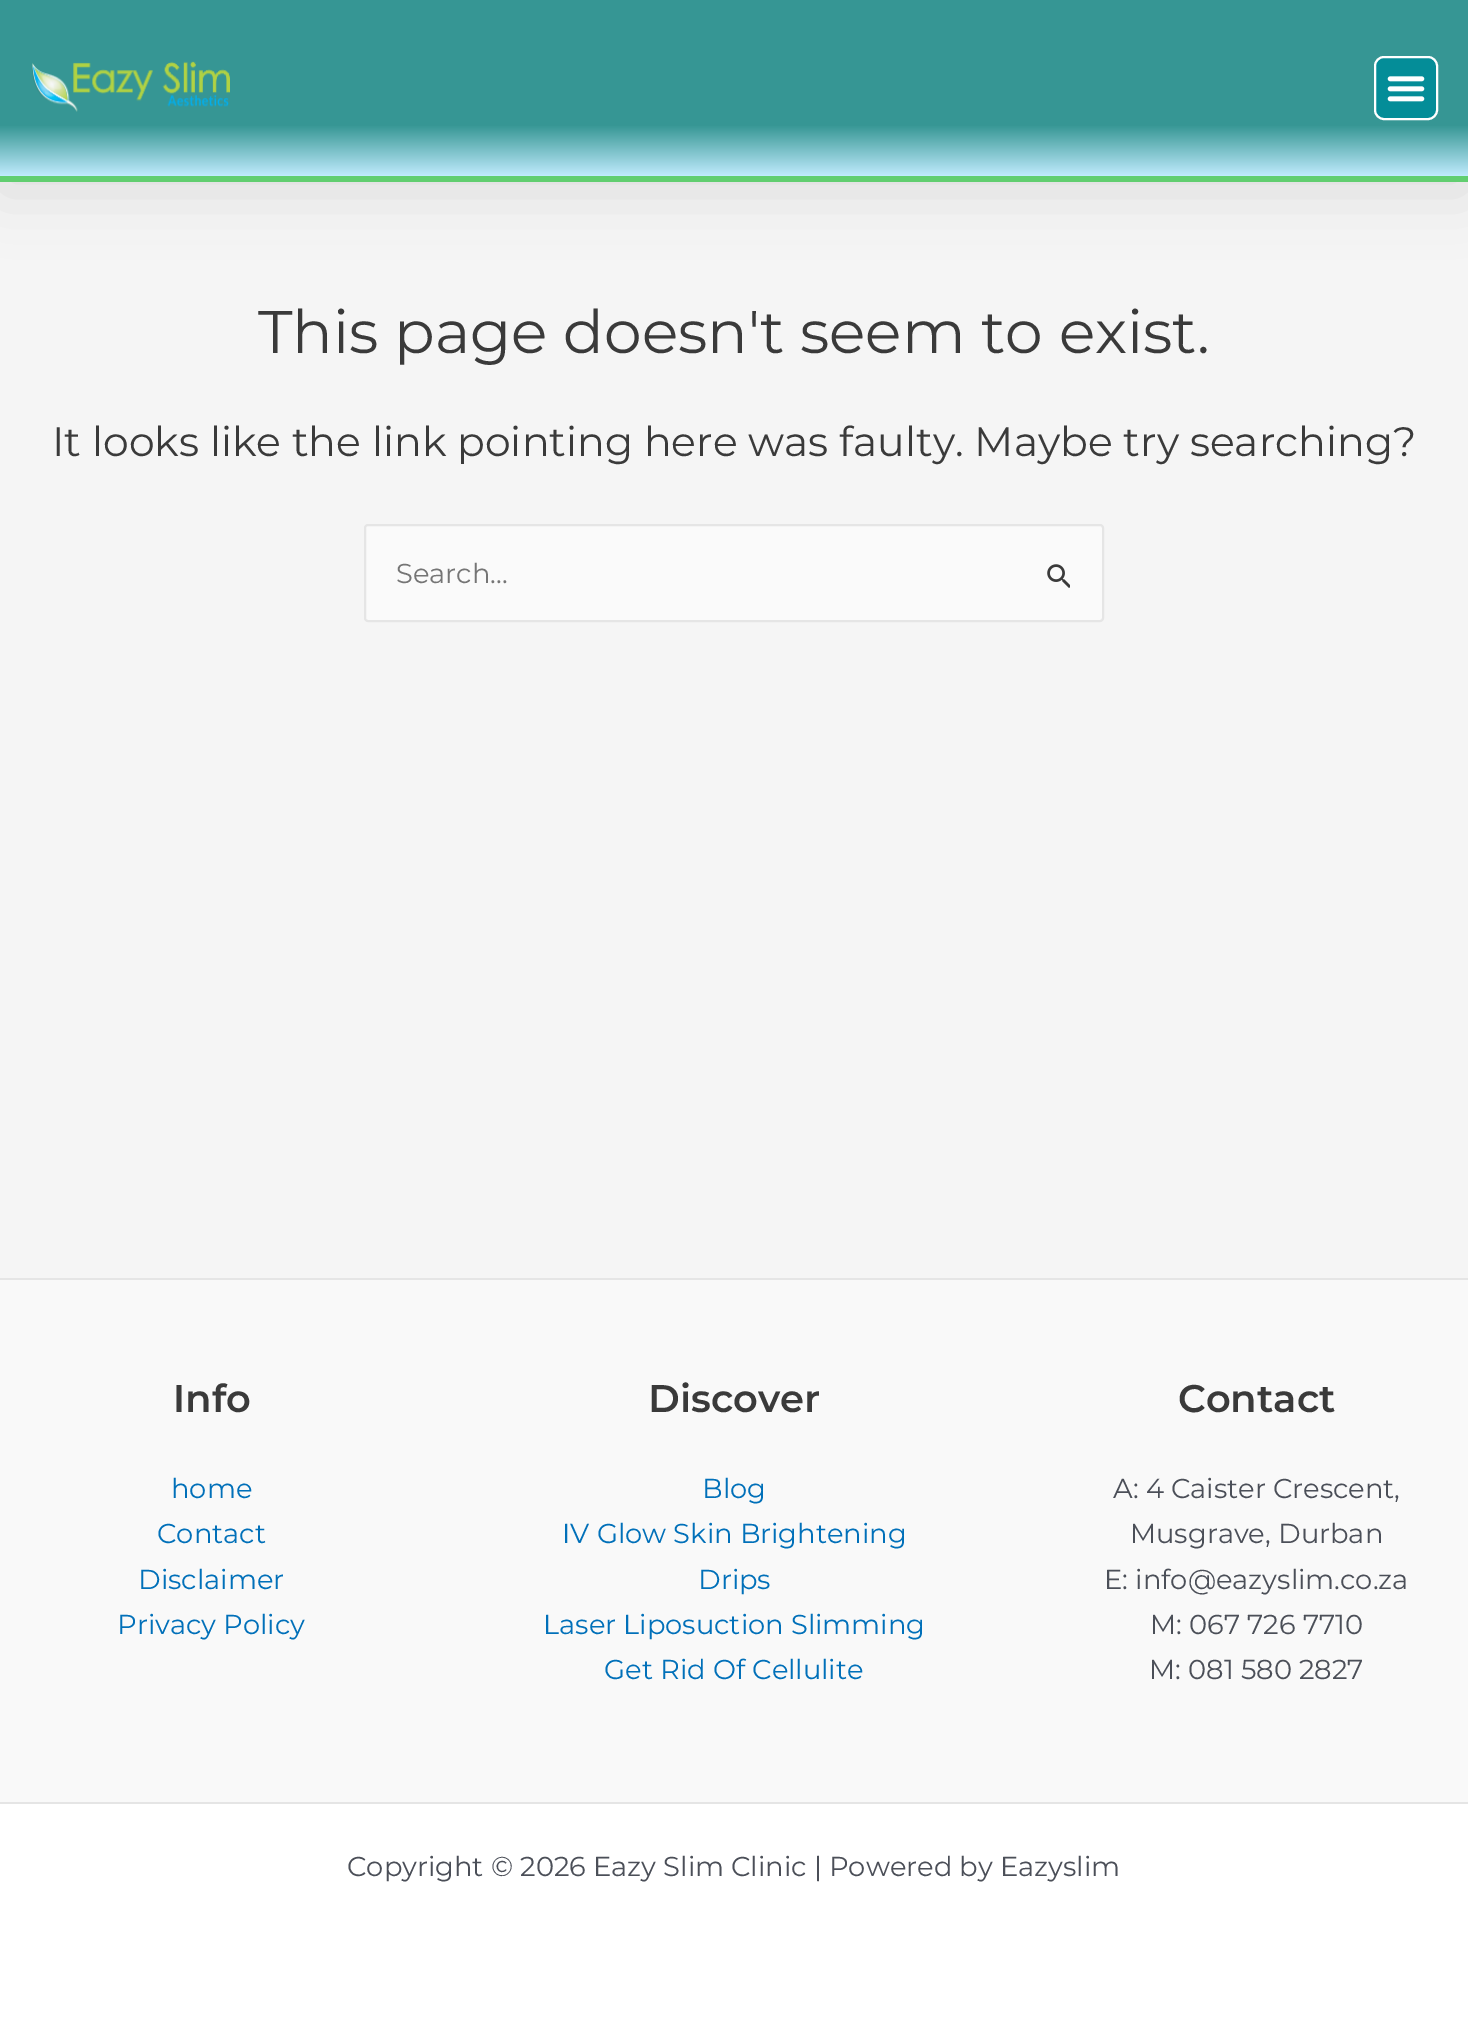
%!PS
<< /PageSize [1468 2043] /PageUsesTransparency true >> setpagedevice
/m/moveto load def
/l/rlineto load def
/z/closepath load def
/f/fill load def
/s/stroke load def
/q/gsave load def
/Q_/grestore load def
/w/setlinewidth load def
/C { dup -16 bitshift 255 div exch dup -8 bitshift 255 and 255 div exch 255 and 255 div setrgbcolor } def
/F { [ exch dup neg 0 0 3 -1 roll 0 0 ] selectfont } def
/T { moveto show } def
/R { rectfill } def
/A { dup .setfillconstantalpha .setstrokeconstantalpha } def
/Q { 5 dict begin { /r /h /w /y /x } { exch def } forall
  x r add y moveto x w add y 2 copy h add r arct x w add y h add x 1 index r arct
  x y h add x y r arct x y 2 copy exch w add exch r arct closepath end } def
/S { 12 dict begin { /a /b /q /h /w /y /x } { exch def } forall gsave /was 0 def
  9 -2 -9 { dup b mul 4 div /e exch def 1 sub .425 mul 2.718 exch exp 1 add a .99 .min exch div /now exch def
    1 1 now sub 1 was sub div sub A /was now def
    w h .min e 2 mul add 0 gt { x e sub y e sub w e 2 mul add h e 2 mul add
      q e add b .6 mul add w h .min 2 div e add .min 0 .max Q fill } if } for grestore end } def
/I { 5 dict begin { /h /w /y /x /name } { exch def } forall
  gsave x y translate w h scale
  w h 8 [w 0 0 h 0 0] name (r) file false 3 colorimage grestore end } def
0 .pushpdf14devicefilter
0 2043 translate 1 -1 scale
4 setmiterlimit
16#F5F5F5 C
0 0 1468 2043 R
16#000000 C
0 10 1468 182 0 30 .1 S
q 0 0 m 1468 0 l 0 176 l -1468 0 l z clip newpath
<< /ShadingType 2 /ColorSpace /DeviceRGB /Coords [734 0 734 176] /Extend [true true] /Function << /FunctionType 3 /Domain [0 1] /Functions [<< /FunctionType 2 /Domain [0 1] /C0 [.212 .588 .58] /C1 [.212 .588 .58] /N 1 >> << /FunctionType 2 /Domain [0 1] /C0 [.212 .588 .58] /C1 [.753 .922 .992] /N 1 >>] /Bounds [.71] /Encode [0 1 0 1] >> >> shfill Q_
16#61CE70 C
0 176 1468 6 R
(1.rgb) 32 61 198 51 I
16#048D98 C
1375 57 62 62 9 Q q f Q_
16#FFFFFF C
2 w
s
(2.rgb) 1387 76 38 26 I
/Montserrat-Regular 60 F
16#3A3A3A C
(This page doesn't seem to exist.) 258 353 T
/Montserrat-Regular 41.05 F
(It looks like the link pointing here was faulty. Maybe try searching?) 52 456 T
16#FAFAFA C
365 525 738 96 3 Q q f Q_
16#E5E5E5 C
s
/Montserrat-Regular 27.35 F
16#757575 C
(Search...) 396 583 T
(3.rgb) 1047 564 23 24 I
16#F9F9F9 C
0 1280 1468 522 R
16#E5E5E5 C
0 1278 1468 2 R
/Montserrat-SemiBold 38.5 F
16#3A3A3A C
(Info) 173 1412 T
/Montserrat-Regular 27.35 F
16#0170B9 C
(home) 171 1498 T
(Contact) 157 1543 T
(Disclaimer) 138 1589 T
(Privacy Policy) 117 1634 T
/Montserrat-SemiBold 38.5 F
16#3A3A3A C
(Discover) 648 1412 T
/Montserrat-Regular 27.35 F
16#0170B9 C
(Blog) 702 1498 T
(IV Glow Skin Brightening) 562 1543 T
(Drips) 698 1589 T
(Laser Liposuction Slimming) 543 1634 T
(Get Rid Of Cellulite) 604 1679 T
/Montserrat-SemiBold 38.5 F
16#3A3A3A C
(Contact) 1178 1412 T
/Montserrat-Regular 27.35 F
16#4B4F58 C
(A: 4 Caister Crescent,) 1113 1498 T
(Musgrave, Durban) 1130 1543 T
(E: info@eazyslim.co.za) 1104 1589 T
(M: 067 726 7710) 1150 1634 T
(M: 081 580 2827) 1149 1679 T
16#FFFFFF C
0 1804 1468 239 R
16#E5E5E5 C
0 1802 1468 2 R
16#4B4F58 C
(Copyright © 2026 Eazy Slim Clinic | Powered by Eazyslim) 347 1876 T
.poppdf14devicefilter showpage
